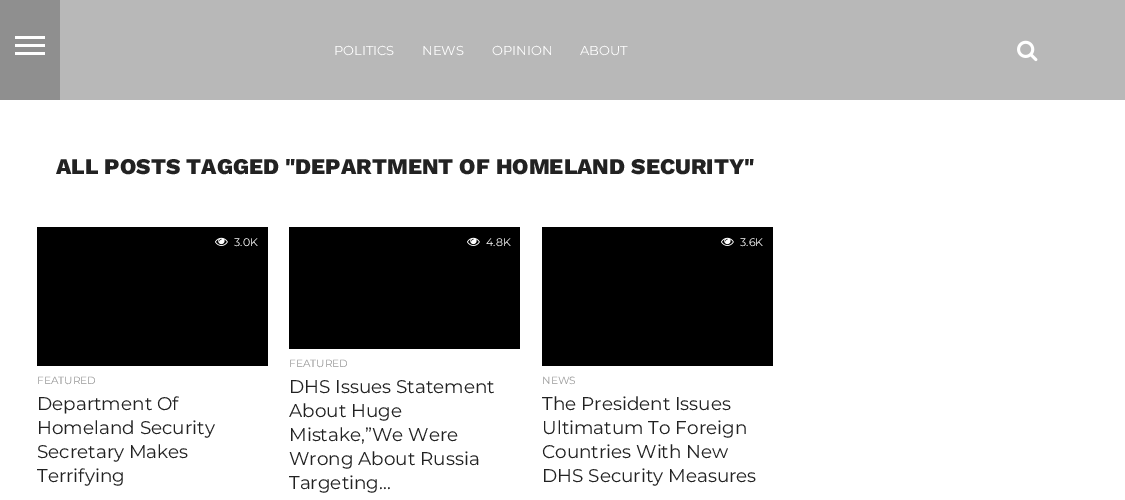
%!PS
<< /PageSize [1125 500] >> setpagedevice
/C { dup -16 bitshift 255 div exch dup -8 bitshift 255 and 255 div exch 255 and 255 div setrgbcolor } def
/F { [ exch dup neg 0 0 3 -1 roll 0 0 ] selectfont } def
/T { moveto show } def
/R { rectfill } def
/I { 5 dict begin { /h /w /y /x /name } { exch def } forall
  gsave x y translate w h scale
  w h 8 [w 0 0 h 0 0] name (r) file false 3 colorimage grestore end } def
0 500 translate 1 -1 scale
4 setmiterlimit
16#FFFFFF C
0 0 1125 500 R
16#B8B8B8 C
60 0 1065 100 R
16#8F8F8F C
0 0 60 100 R
16#FFFFFF C
15 36 30 3 R
15 44 30 3 R
15 52 30 3 R
/Montserrat-Regular 13 F
(POLITICS) 334 55 T
(NEWS) 422 55 T
(OPINION) 492 55 T
(ABOUT) 580 55 T
(1.rgb) 1017 40 21 22 I
/WorkSans-ExtraBold 22.4 F
16#222222 C
(ALL POSTS TAGGED "DEPARTMENT OF HOMELAND SECURITY") 56 174 T
16#000000 C
37 227 231 139 R
(2.rgb) 215 237 13 9 I
/Montserrat-Regular 11 F
16#FFFFFF C
(3.0K) 234 246 T
/Montserrat-Regular 10.5 F
16#999999 C
(FEATURED) 37 384 T
/Montserrat-Regular 18.4 F
16#222222 C
(Department Of) 37 410 T
(Homeland Security) 37 434 T
(Secretary Makes) 37 458 T
(Terrifying) 37 482 T
16#000000 C
289 227 231 122 R
(2.rgb) 467 237 13 9 I
/Montserrat-Regular 11 F
16#FFFFFF C
(4.8K) 486 246 T
/Montserrat-Regular 10.5 F
16#999999 C
(FEATURED) 289 367 T
/Montserrat-Regular 18.4 F
16#222222 C
(DHS Issues Statement) 289 393 T
(About Huge) 289 417 T
(Mistake,”We Were) 289 441 T
(Wrong About Russia) 289 465 T
(Targeting…) 289 489 T
16#000000 C
542 227 231 139 R
(2.rgb) 721 237 13 9 I
/Montserrat-Regular 11 F
16#FFFFFF C
(3.6K) 740 246 T
/Montserrat-Regular 10.5 F
16#999999 C
(NEWS) 542 384 T
/Montserrat-Regular 18.4 F
16#222222 C
(The President Issues) 542 410 T
(Ultimatum To Foreign) 542 434 T
(Countries With New) 542 458 T
(DHS Security Measures) 542 482 T
showpage
